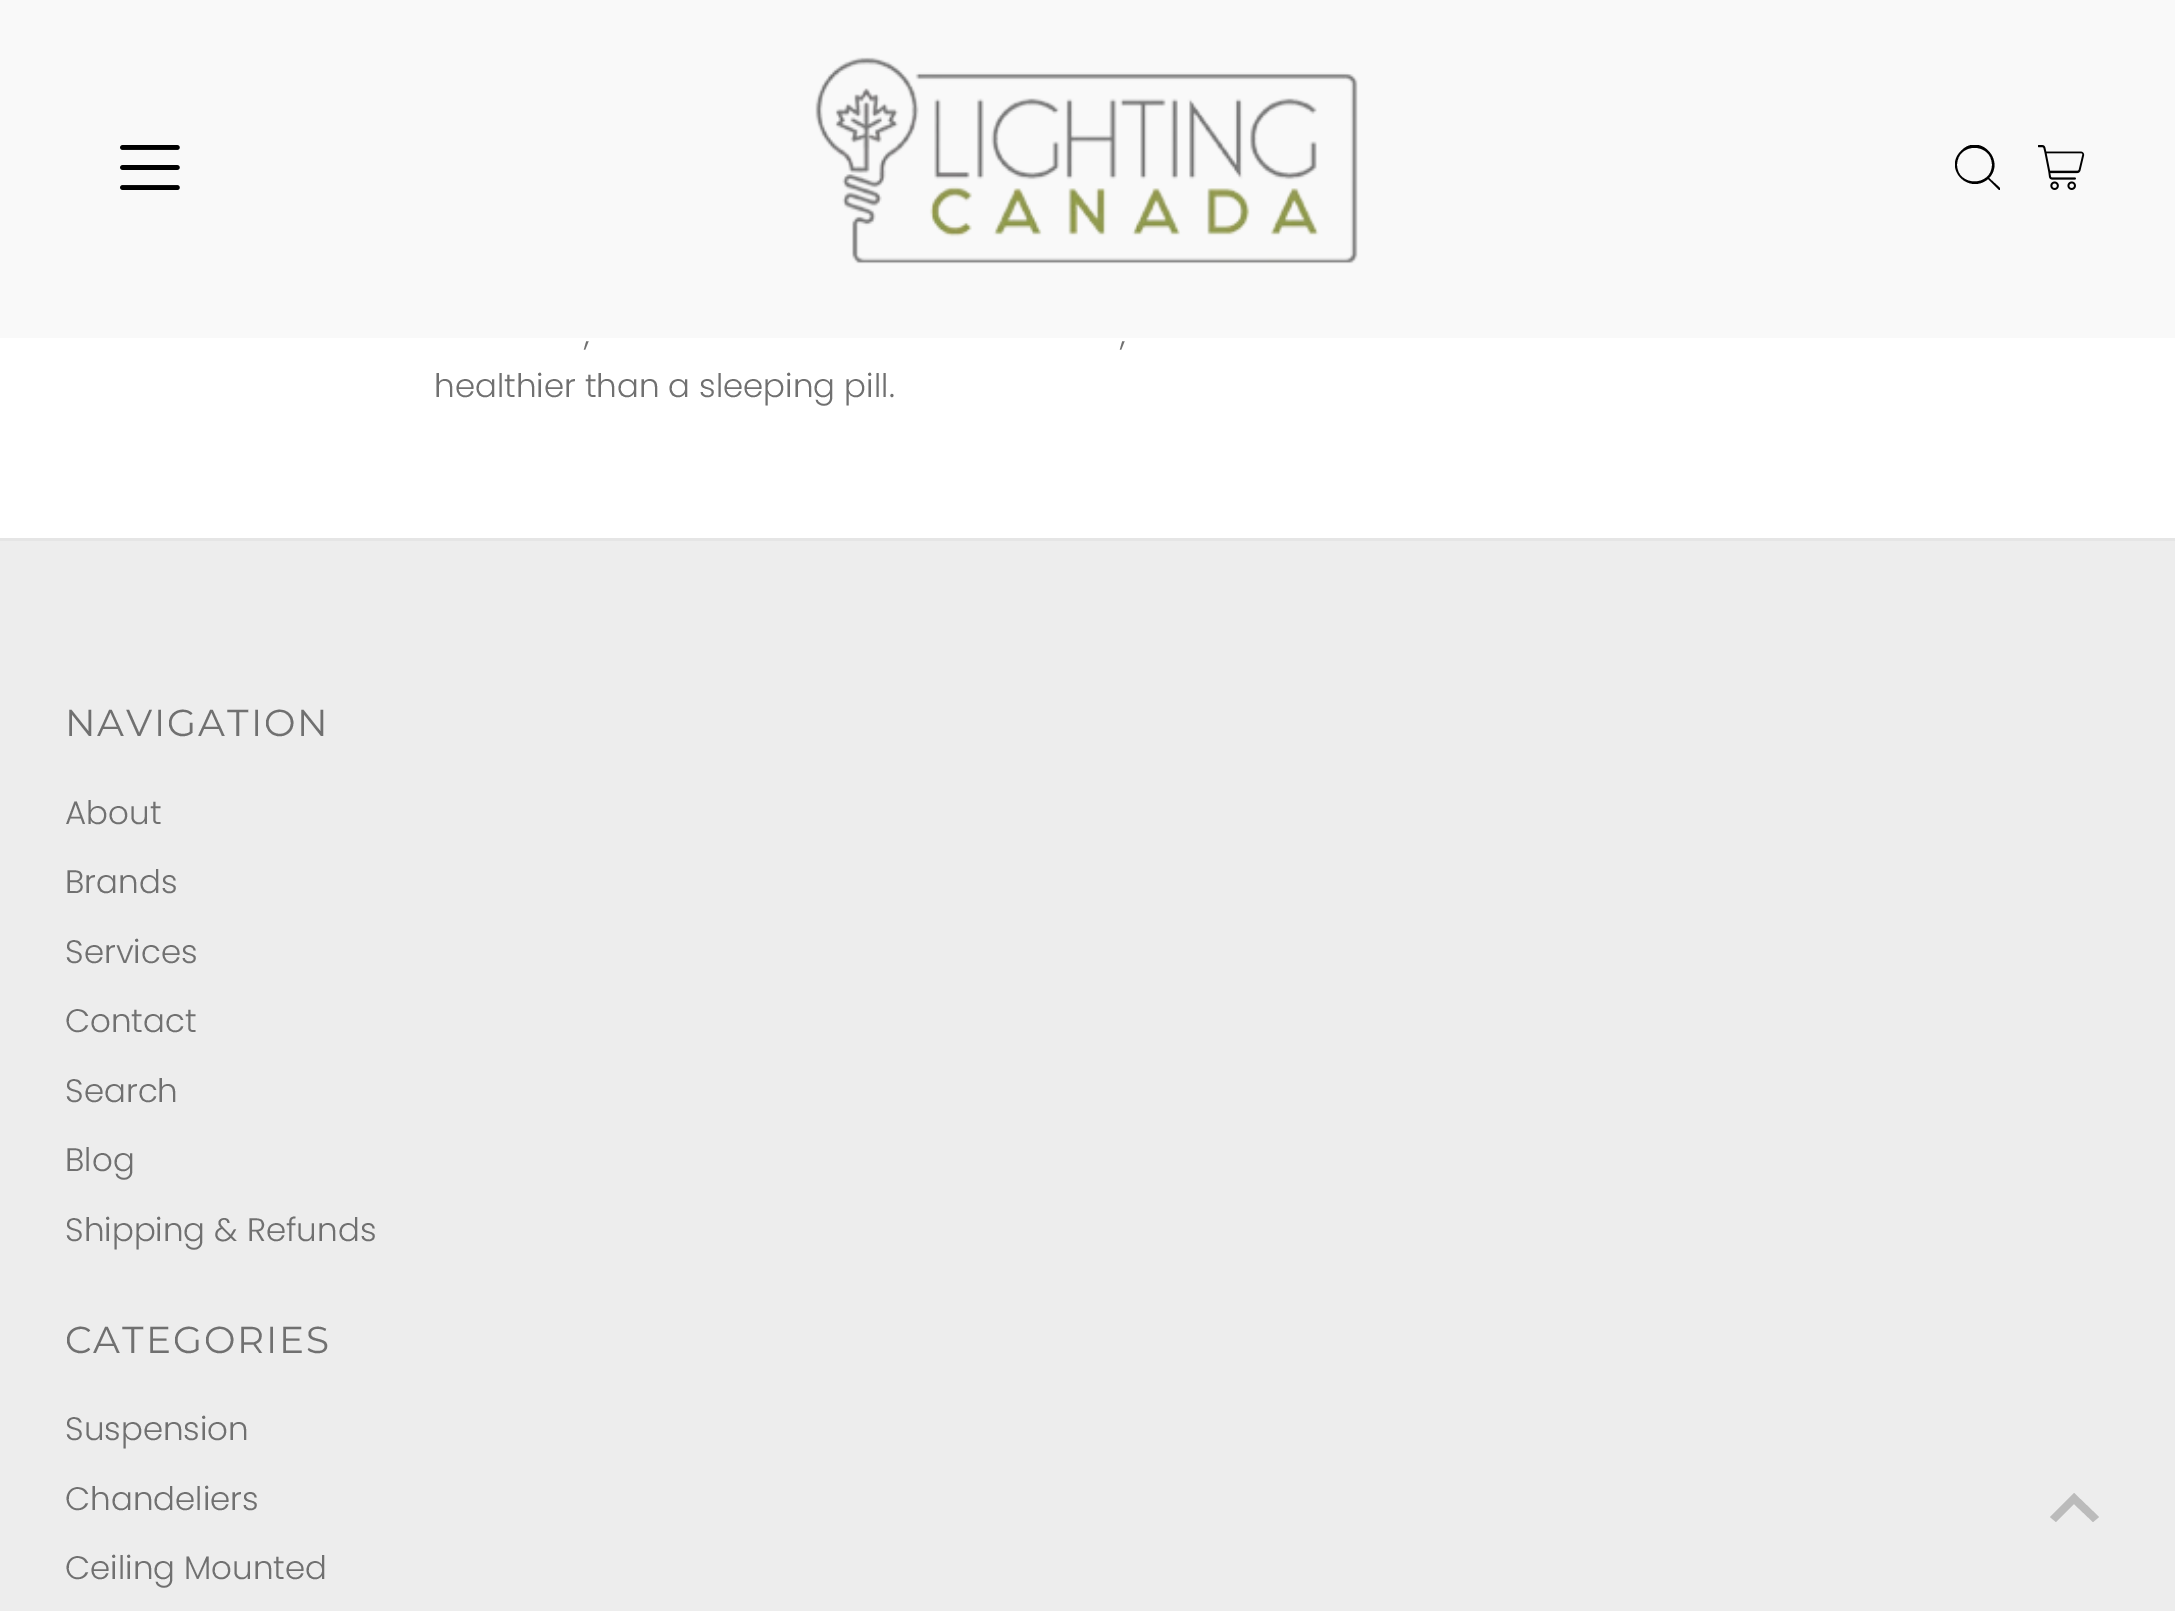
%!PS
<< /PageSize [2175 1611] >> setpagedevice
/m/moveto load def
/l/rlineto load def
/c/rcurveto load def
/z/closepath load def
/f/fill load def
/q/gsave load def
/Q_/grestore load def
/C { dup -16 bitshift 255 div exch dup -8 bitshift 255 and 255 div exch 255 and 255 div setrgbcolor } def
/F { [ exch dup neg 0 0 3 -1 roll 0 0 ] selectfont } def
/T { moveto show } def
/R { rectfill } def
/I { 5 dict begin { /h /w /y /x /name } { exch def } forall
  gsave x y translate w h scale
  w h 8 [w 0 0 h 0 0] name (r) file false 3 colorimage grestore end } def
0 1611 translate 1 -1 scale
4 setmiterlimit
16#FFFFFF C
0 0 2175 1611 R
16#F9F9F9 C
0 0 2175 338 R
(1.rgb) 120 145 60 45 I
(2.rgb) 815 57 543 207 I
q
1955 145 45 45 rectclip
16#000000 C
2000 188 m -11 -10 l 17 -18 -10 -46 -28 -27 c -18 18 8 44 27 28 c 11 11 l 1 0 2 -1 1 -2 c z 1957 165 m 0 -23 35 -23 35 0 c 0 22 -35 22 -35 0 c z f
Q_
(3.rgb) 2038 145 47 45 I
/Poppins-Light 32.5 F
16#707070 C
(,) 584 345 T
(,) 1120 345 T
(healthier than a sleeping pill.) 434 397 T
16#EDEDED C
0 541 2175 1070 R
16#E5E5E5 C
0 538 2175 3 R
/Montserrat-Regular 37.5 F
16#707070 C
65 736 m 1.9 0 (NAVIGATION) ashow
/Poppins-Light 32.5 F
(About) 65 824 T
(Brands) 65 893 T
(Services) 65 963 T
(Contact) 65 1032 T
(Search) 65 1102 T
(Blog) 65 1171 T
(Shipping & Refunds) 65 1241 T
/Montserrat-Regular 37.5 F
65 1353 m 1.9 0 (CATEGORIES) ashow
/Poppins-Light 32.5 F
(Suspension) 65 1440 T
(Chandeliers) 65 1510 T
(Ceiling Mounted) 65 1579 T
16#BBBBBB C
2074 1493 m -24 24 l 6 5 l 18 -18 l 19 18 l 6 -5 l z f
showpage
